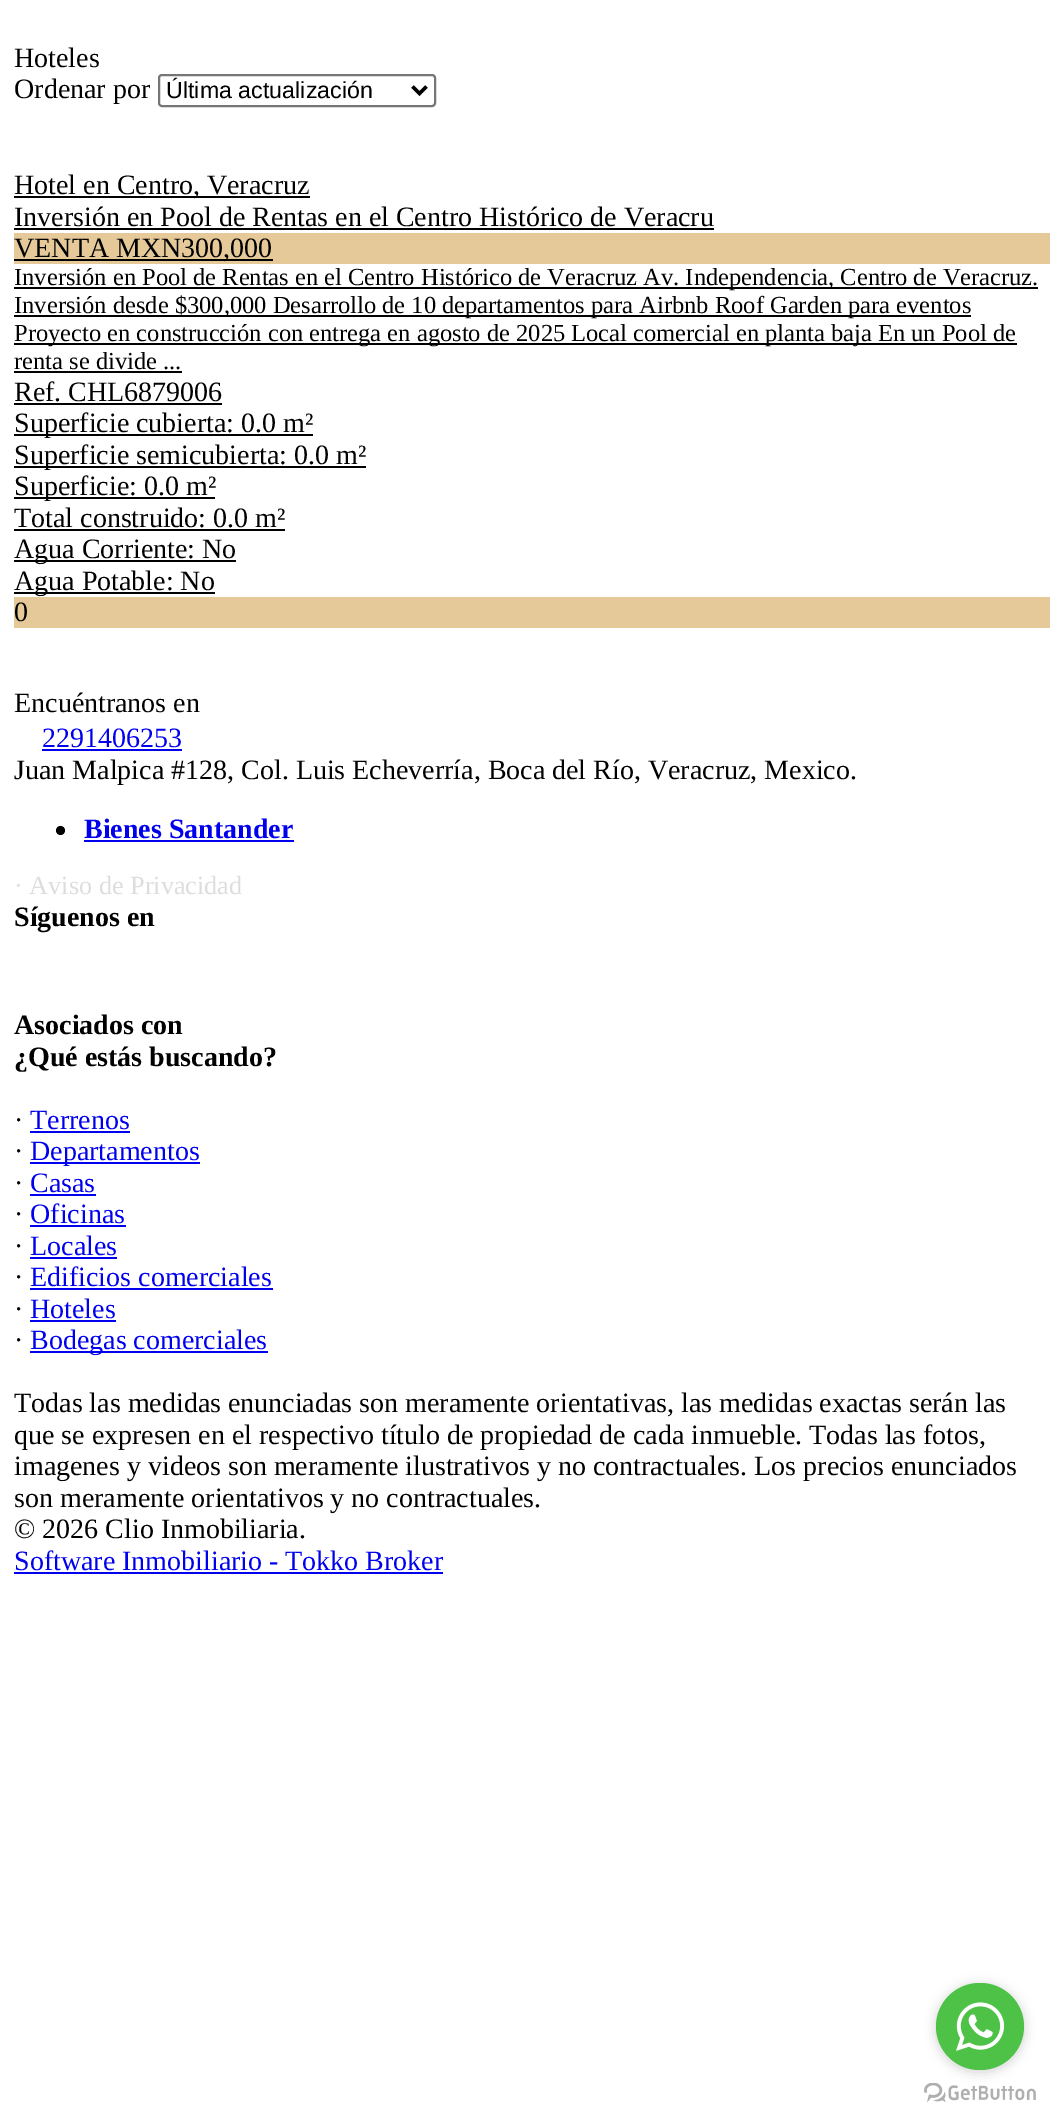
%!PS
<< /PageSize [1064 2125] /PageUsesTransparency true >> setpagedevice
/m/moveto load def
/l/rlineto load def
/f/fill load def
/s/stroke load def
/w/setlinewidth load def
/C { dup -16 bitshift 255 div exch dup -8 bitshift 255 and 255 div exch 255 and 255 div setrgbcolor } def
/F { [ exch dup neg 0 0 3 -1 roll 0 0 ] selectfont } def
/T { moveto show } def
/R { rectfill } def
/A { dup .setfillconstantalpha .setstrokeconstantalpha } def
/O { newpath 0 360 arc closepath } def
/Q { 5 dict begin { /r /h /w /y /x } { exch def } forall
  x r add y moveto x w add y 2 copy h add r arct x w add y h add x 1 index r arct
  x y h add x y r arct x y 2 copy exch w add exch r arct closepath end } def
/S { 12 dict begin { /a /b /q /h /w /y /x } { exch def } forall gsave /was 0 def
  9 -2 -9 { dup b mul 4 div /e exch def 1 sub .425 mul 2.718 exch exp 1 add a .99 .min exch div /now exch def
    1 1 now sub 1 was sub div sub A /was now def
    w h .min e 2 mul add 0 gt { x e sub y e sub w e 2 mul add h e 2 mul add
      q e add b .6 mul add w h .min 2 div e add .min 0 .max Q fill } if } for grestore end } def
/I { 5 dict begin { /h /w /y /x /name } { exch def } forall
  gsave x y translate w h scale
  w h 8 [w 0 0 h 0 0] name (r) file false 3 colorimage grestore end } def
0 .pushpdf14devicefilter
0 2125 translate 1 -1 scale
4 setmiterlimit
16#FFFFFF C
0 0 1064 2125 R
/LiberationSerif-Regular 28 F
16#000000 C
(Hoteles) 14 67 T
(Ordenar por) 14 98 T
16#767676 C
2 w
159 75 276 31 3 Q s
16#000000 C
3.5 w
412.5 86.5 m 7 7 l 7 -7 l s
/LiberationSans-Regular 23.25 F
(Última actualización) 166 98 T
14 196 296 2 R
/LiberationSerif-Regular 28 F
(Hotel en Centro, Veracruz) 14 194 T
(Inversión en Pool de Rentas en el Centro Histórico de Veracru) 14 226 T
14 228 700 2 R
16#E5C999 C
14 233 1036 31 R
16#000000 C
14 259 259 2 R
(VENTA MXN300,000) 14 257 T
14 287 1024 2 R
/LiberationSerif-Regular 24.5 F
(Inversión en Pool de Rentas en el Centro Histórico de Veracruz Av. Independencia, Centro de Veracruz.) 14 285 T
14 315 957 2 R
(Inversión desde $300,000 Desarrollo de 10 departamentos para Airbnb Roof Garden para eventos) 14 313 T
14 343 1003 2 R
(Proyecto en construcción con entrega en agosto de 2025 Local comercial en planta baja En un Pool de) 14 341 T
(renta se divide ...) 14 369 T
14 371 168 2 R
/LiberationSerif-Regular 28 F
(Ref. CHL6879006) 14 401 T
14 403 208 2 R
14 434 299 2 R
(Superficie cubierta: 0.0 m²) 14 432 T
14 466 352 2 R
(Superficie semicubierta: 0.0 m²) 14 464 T
14 497 201 2 R
(Superficie: 0.0 m²) 14 495 T
(Total construido: 0.0 m²) 14 527 T
14 529 271 2 R
14 560 222 2 R
(Agua Corriente: No) 14 558 T
14 592 201 2 R
(Agua Potable: No) 14 590 T
16#E5C999 C
14 597 1036 31 R
16#000000 C
(0) 14 621 T
(Encuéntranos en) 14 712 T
16#0000EE C
(2291406253) 42 747 T
42 749 140 2 R
16#000000 C
(Juan Malpica #128, Col. Luis Echeverría, Boca del Río, Veracruz, Mexico.) 14 779 T
60.5 830.5 4.5 O f
/LiberationSerif-Bold 28 F
16#0000EE C
(Bienes Santander) 84 838 T
84 840 210 2 R
/LiberationSerif-Regular 26.25 F
16#DDDDDD C
(· Aviso de Privacidad) 14 894 T
/LiberationSerif-Bold 28 F
16#000000 C
(Síguenos en) 14 926 T
(Asociados con) 14 1034 T
(¿Qué estás buscando?) 14 1066 T
/LiberationSerif-Regular 28 F
(·) 14 1129 T
16#0000EE C
(Terrenos) 30 1129 T
30 1131 100 2 R
16#000000 C
(·) 14 1160 T
16#0000EE C
30 1162 170 2 R
(Departamentos) 30 1160 T
16#000000 C
(·) 14 1192 T
16#0000EE C
(Casas) 30 1192 T
30 1194 66 2 R
16#000000 C
(·) 14 1223 T
16#0000EE C
(Oficinas) 30 1223 T
30 1225 96 2 R
16#000000 C
(·) 14 1255 T
16#0000EE C
(Locales) 30 1255 T
30 1257 87 2 R
16#000000 C
(·) 14 1286 T
16#0000EE C
(Edificios comerciales) 30 1286 T
30 1288 243 2 R
16#000000 C
(·) 14 1318 T
16#0000EE C
(Hoteles) 30 1318 T
30 1320 86 2 R
16#000000 C
(·) 14 1349 T
16#0000EE C
30 1351 238 2 R
(Bodegas comerciales) 30 1349 T
16#000000 C
(Todas las medidas enunciadas son meramente orientativas, las medidas exactas serán las) 14 1412 T
(que se expresen en el respectivo título de propiedad de cada inmueble. Todas las fotos,) 14 1444 T
(imagenes y videos son meramente ilustrativos y no contractuales. Los precios enunciados) 14 1475 T
(son meramente orientativos y no contractuales.) 14 1507 T
(© 2026 Clio Inmobiliaria.) 14 1538 T
16#0000EE C
(Software Inmobiliario - Tokko Broker) 14 1570 T
14 1572 429 2 R
(2.rgb) 924 2083 112 19 I
16#888888 C
936 1985 88 87 43.5 6 .4 S
16#4DC247 C
936 1983 88 87 43.5 Q f
(1.rgb) 956 2002 49 49 I
.poppdf14devicefilter showpage
